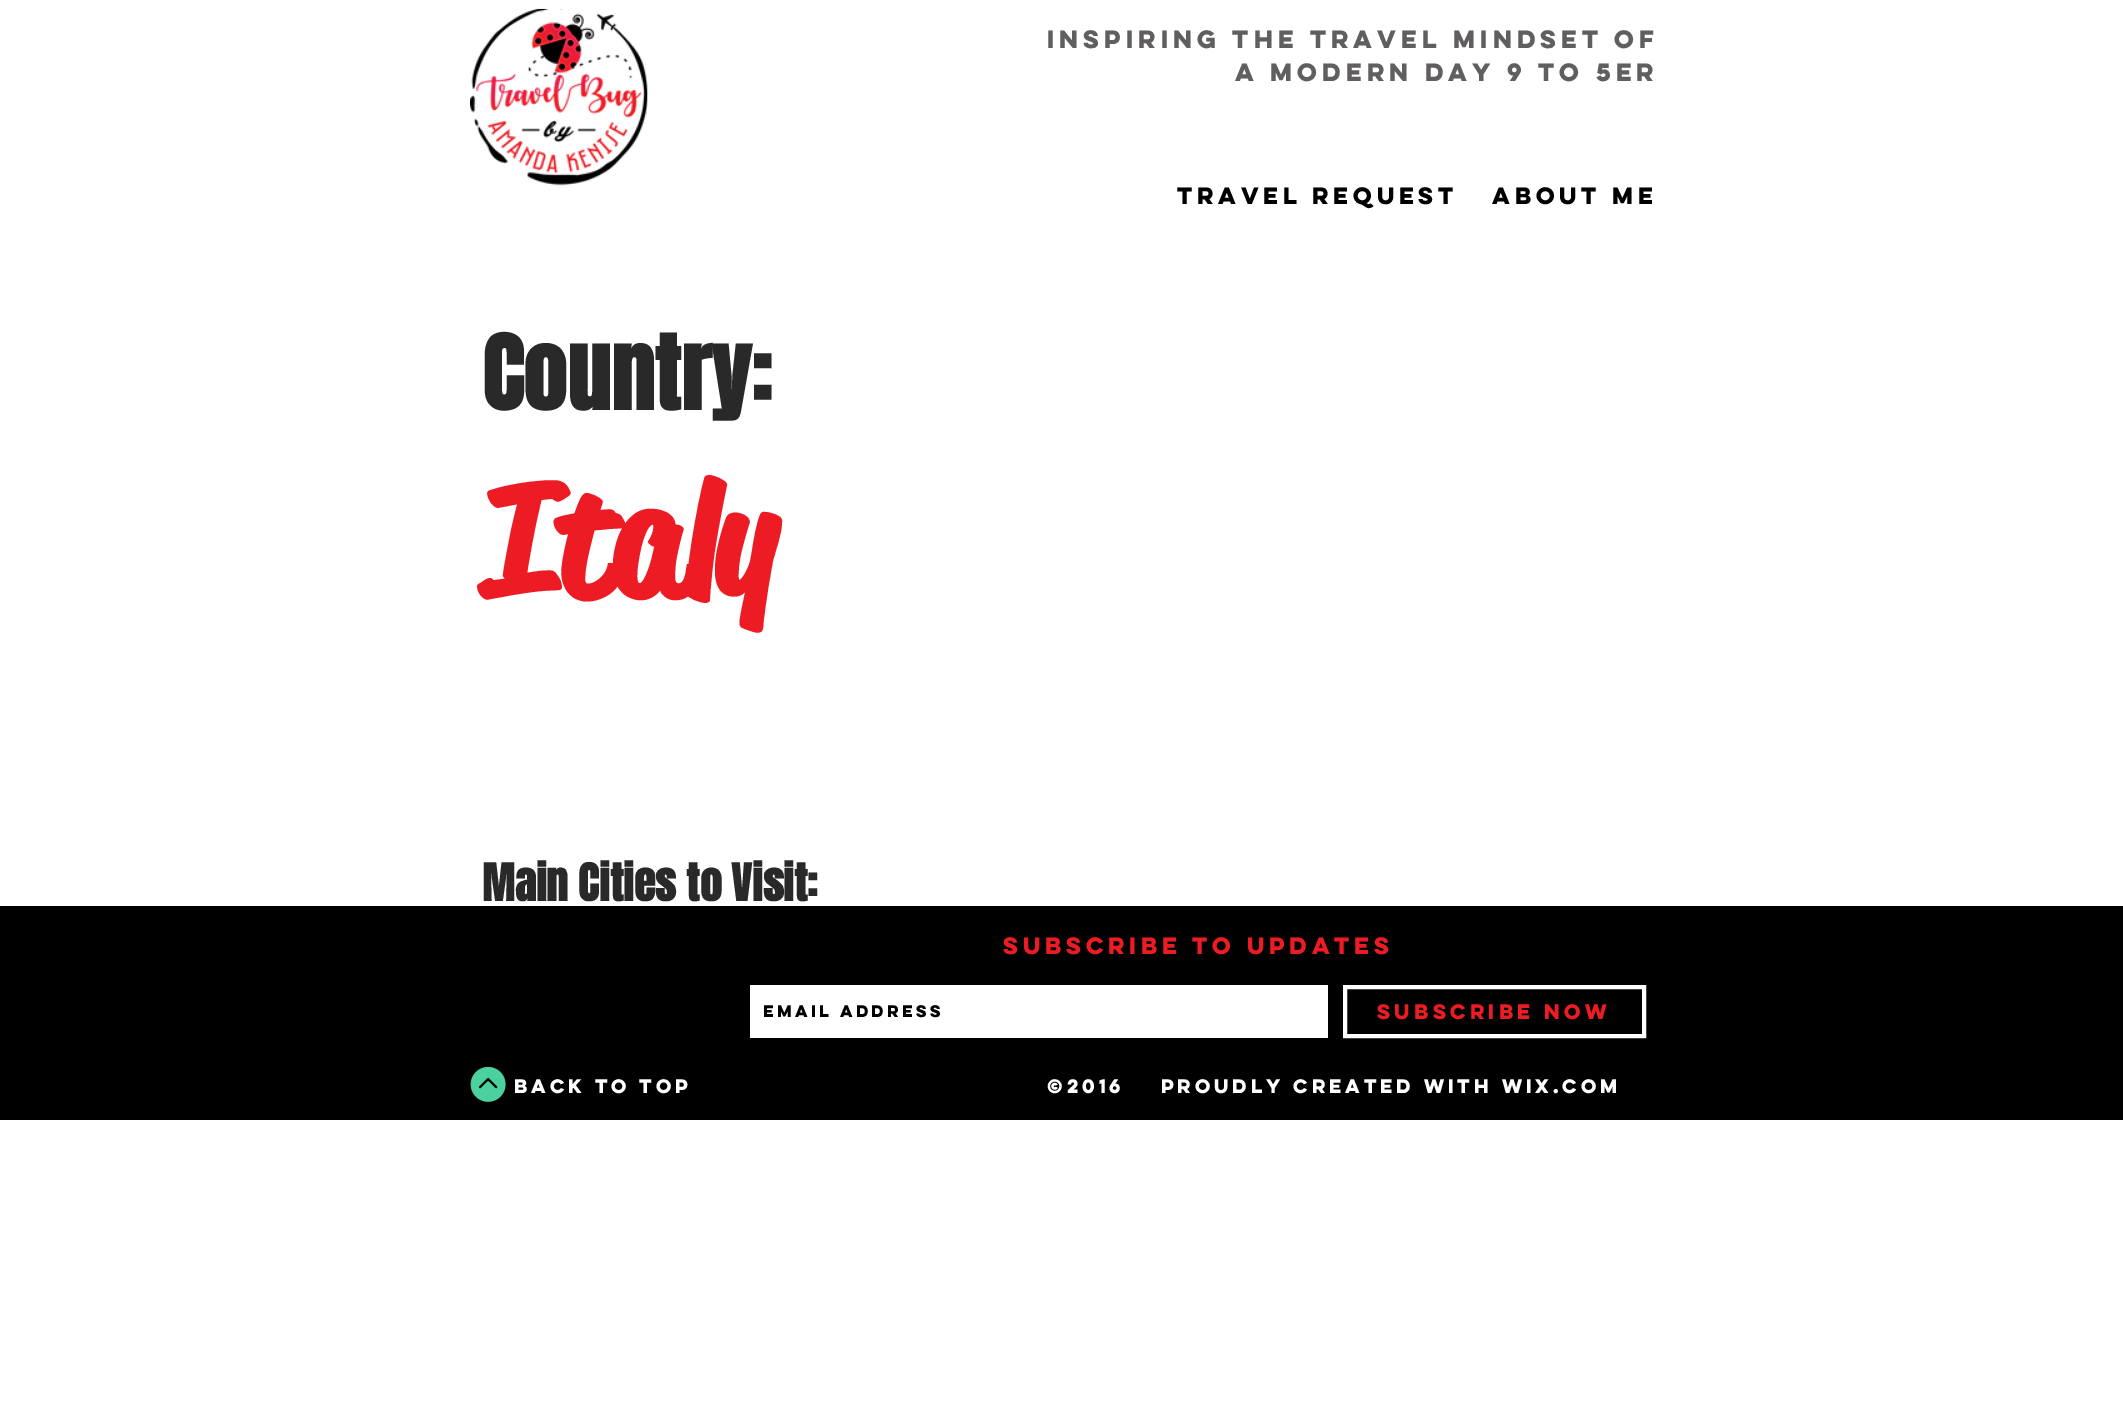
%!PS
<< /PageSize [2123 1405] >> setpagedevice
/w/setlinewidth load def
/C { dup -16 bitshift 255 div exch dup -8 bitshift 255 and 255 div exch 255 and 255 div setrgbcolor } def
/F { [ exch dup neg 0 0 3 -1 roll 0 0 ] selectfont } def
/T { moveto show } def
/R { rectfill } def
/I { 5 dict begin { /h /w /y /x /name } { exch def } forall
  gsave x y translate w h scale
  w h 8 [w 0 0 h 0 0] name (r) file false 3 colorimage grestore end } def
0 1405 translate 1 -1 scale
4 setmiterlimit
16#FFFFFF C
0 0 2123 1405 R
(1.rgb) 470 8 178 178 I
/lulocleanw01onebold-Bold 22.5 F
16#605E5E C
(Inspiring the travel mindset of) 1047 48 T
(a modern day 9 to 5er) 1235 81 T
/lulocleanw01onebold-Bold 21.25 F
16#000000 C
(Travel Request) 1177 204 T
(About Me) 1492 204 T
/Anton-Bold 87.5 F
16#292929 C
(Country:) 482 410 T
/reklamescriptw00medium-Bold 156 F
16#ED1C24 C
(Italy) 482 596 T
/Anton-Bold 43.75 F
16#292929 C
(Main Cities to Visit:) 482 901 T
16#000000 C
0 906 2123 214 R
/lulocleanw01onebold-Bold 21.25 F
16#ED1C24 C
(Subscribe to Updates) 1003 954 T
16#FFFFFF C
750 985 578 53 R
/lulocleanw01onebold-Bold 15 F
16#000000 C
(Email Address) 763 1017 T
16#FFFFFF C
4 w
1345 987 299 49 rectstroke
/lulocleanw01onebold-Bold 18.75 F
16#ED1C24 C
(Subscribe Now) 1377 1019 T
(2.rgb) 470 1066 36 36 I
/lulocleanw01onebold-Bold 17.5 F
16#FFFFFF C
(BACK TO TOP) 514 1093 T
(©2016    Proudly created with Wix.com) 1047 1093 T
showpage
